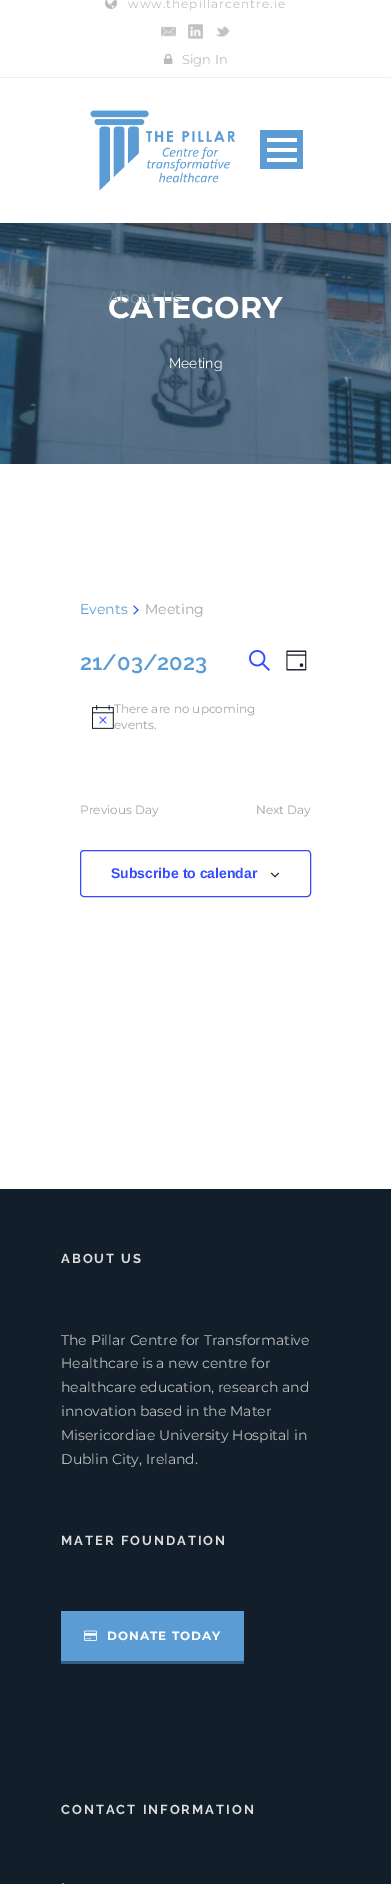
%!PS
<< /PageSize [391 1884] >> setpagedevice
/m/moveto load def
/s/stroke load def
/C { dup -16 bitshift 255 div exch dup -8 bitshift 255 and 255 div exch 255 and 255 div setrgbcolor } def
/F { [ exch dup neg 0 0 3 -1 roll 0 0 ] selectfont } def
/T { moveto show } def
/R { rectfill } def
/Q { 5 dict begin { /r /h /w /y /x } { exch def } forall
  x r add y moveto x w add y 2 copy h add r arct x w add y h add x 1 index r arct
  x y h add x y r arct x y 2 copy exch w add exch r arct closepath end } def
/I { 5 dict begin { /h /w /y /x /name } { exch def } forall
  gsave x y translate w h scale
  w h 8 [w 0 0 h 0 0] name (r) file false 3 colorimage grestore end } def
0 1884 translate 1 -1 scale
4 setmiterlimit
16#FFFFFF C
0 0 391 1884 R
16#EEEEEE C
0 77 391 1 R
(1.rgb) 105 0 12 9 I
/Montserrat-Regular 12 F
16#BFBFBF C
128 8 m 1 0 (www.thepillarcentre.ie) ashow
(2.rgb) 161 26 15 11 I
(3.rgb) 188 24 15 15 I
(4.rgb) 215 26 15 11 I
(5.rgb) 164 53 9 11 I
/Montserrat-Regular 13 F
(Sign In) 182 64 T
(6.rgb) 90 110 145 81 I
16#5B9CD4 C
260 130 43 39 R
16#FFFFFF C
267 158 30 4 R
267 148 30 4 R
267 138 30 4 R
(7.rgb) 0 223 391 241 I
/Montserrat-Bold 30 F
(CATEGORY) 108 318 T
/Montserrat-Regular 16 F
16#8597A7 C
(About Us) 108 303 T
/Raleway-Regular 14 F
16#FFFFFF C
(Meeting) 169 368 T
/Montserrat-Regular 14 F
16#5B9CD4 C
(Events) 80 614 T
(8.rgb) 133 605 6 10 I
16#A4A4A4 C
(Meeting) 145 614 T
/Raleway-SemiBold 22 F
16#5B9CD4 C
(21/03/2023) 80 670 T
(9.rgb) 249 650 21 21 I
(10.rgb) 286 650 21 21 I
/Montserrat-Regular 12 F
16#A4A4A4 C
(There are no upcoming) 114 713 T
(11.rgb) 92 705 22 24 I
(events.) 114 729 T
(Previous Day) 80 814 T
(Next Day) 256 814 T
16#334AFF C
80.5 850.5 230 46 3.5 Q s
/LiberationSans-Bold 14 F
(Subscribe to calendar) 111 878 T
(12.rgb) 270 872 10 6 I
16#121F2A C
0 1189 391 695 R
/Raleway-Bold 13 F
16#DDDDDD C
61 1263 m 2 0 (ABOUT US) ashow
/Montserrat-Regular 14 F
16#BFBFBF C
(The Pillar Centre for Transformative) 61 1345 T
(Healthcare is a new centre for) 61 1368 T
(healthcare education, research and) 61 1392 T
(innovation based in the Mater) 61 1416 T
(Misericordiae University Hospital in) 61 1440 T
(Dublin City, Ireland.) 61 1464 T
/Raleway-Bold 13 F
16#DDDDDD C
61 1545 m 2 0 (MATER FOUNDATION) ashow
16#5B9CD4 C
61 1611 183 50 R
16#365D7F C
61 1661 183 3 R
(13.rgb) 84 1630 13 11 I
/Montserrat-Bold 12 F
16#FFFFFF C
107 1640 m 1 0 (DONATE TODAY) ashow
/Raleway-Bold 13 F
16#DDDDDD C
61 1814 m 2 0 (CONTACT INFORMATION) ashow
(14.rgb) 62 1883 3 1 I
showpage
